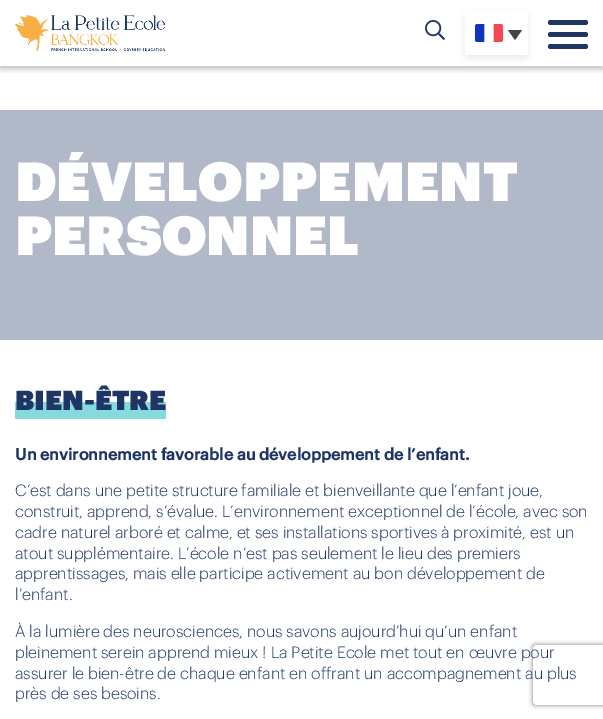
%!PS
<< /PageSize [603 719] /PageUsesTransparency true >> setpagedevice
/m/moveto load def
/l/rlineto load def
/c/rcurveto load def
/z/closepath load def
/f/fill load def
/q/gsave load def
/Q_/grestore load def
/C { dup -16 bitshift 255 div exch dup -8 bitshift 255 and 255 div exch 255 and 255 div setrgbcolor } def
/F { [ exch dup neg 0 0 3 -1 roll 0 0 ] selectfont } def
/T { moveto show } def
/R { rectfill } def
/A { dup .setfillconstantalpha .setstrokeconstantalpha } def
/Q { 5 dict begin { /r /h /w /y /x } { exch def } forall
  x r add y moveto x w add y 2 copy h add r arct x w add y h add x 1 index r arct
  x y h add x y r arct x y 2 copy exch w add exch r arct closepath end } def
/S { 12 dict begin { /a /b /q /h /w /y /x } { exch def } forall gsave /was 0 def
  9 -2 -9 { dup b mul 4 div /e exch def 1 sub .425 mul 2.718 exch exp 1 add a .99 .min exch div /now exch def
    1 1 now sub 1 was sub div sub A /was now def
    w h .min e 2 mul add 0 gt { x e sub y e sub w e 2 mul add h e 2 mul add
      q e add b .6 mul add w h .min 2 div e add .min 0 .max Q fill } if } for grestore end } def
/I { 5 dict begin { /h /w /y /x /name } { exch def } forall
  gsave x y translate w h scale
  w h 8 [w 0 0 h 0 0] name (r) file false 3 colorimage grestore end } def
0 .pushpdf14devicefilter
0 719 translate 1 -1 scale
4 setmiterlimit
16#FFFFFF C
0 0 603 719 R
q
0 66 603 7 rectclip
16#000000 C
0 3 603 66 0 3 .25 S
Q_
(1.rgb) 15 15 150 37 I
(2.rgb) 425 20 20 20 I
16#000000 C
465 14 63 44 4 3 .08 S
16#FFFFFF C
465 11 63 44 R
(3.rgb) 475 24 28 18 I
16#444444 C
508 30 m 14 0 l -7 10 l z f
16#1F3565 C
548 20 40 5 2.5 Q f
548 32 40 5 2.5 Q f
548 44 40 5 2.5 Q f
16#B1B9C9 C
0 110 603 230 R
/Graphik-Black 54 F
16#FFFFFF C
(DÉVELOPPEMENT) 15 201 T
(PERSONNEL) 15 255 T
q 15 402 m 151 0 l 0 17 l -151 0 l z clip newpath
<< /ShadingType 2 /ColorSpace /DeviceRGB /Coords [91 388 91 433] /Extend [true true] /Function << /FunctionType 3 /Domain [0 1] /Functions [<< /FunctionType 2 /Domain [0 1] /C0 [1 1 1] /C1 [1 1 1] /N 1 >> << /FunctionType 2 /Domain [0 1] /C0 [.522 .855 .859] /C1 [.522 .855 .859] /N 1 >>] /Bounds [.31] /Encode [0 1 0 1] >> >> shfill Q_
/Graphik-Black 27 F
16#1F3565 C
(BIEN-ÊTRE) 15 410 T
/Graphik-Bold 16 F
(Un environnement favorable au développement de l’enfant.) 15 460 T
/Graphik-Light 16 F
(C’est dans une petite structure familiale et bienveillante que l’enfant joue,) 15 496 T
(construit, apprend, s’évalue. L’environnement exceptionnel de l’école, avec son) 15 517 T
(cadre naturel arboré et calme, et ses installations sportives à proximité, est un) 15 538 T
(atout supplémentaire. L’école n’est pas seulement le lieu des premiers) 15 559 T
(apprentissages, mais elle participe activement au bon développement de) 15 579 T
(l’enfant.) 15 600 T
(À la lumière des neurosciences, nous savons aujourd’hui qu’un enfant) 15 637 T
(pleinement serein apprend mieux ! La Petite Ecole met tout en œuvre pour) 15 658 T
(assurer le bien-être de chaque enfant en offrant un accompagnement au plus) 15 679 T
(près de ses besoins.) 15 699 T
q
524 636 m 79 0 l 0 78 l -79 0 l z 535 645 m 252 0 l 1 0 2 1 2 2 c 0 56 l 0 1 -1 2 -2 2 c -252 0 l -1 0 -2 -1 -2 -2 c 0 -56 l 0 -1 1 -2 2 -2 c z eoclip newpath
16#808080 C
533 645 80 60 2 2.5 1 S
Q_
.poppdf14devicefilter showpage
